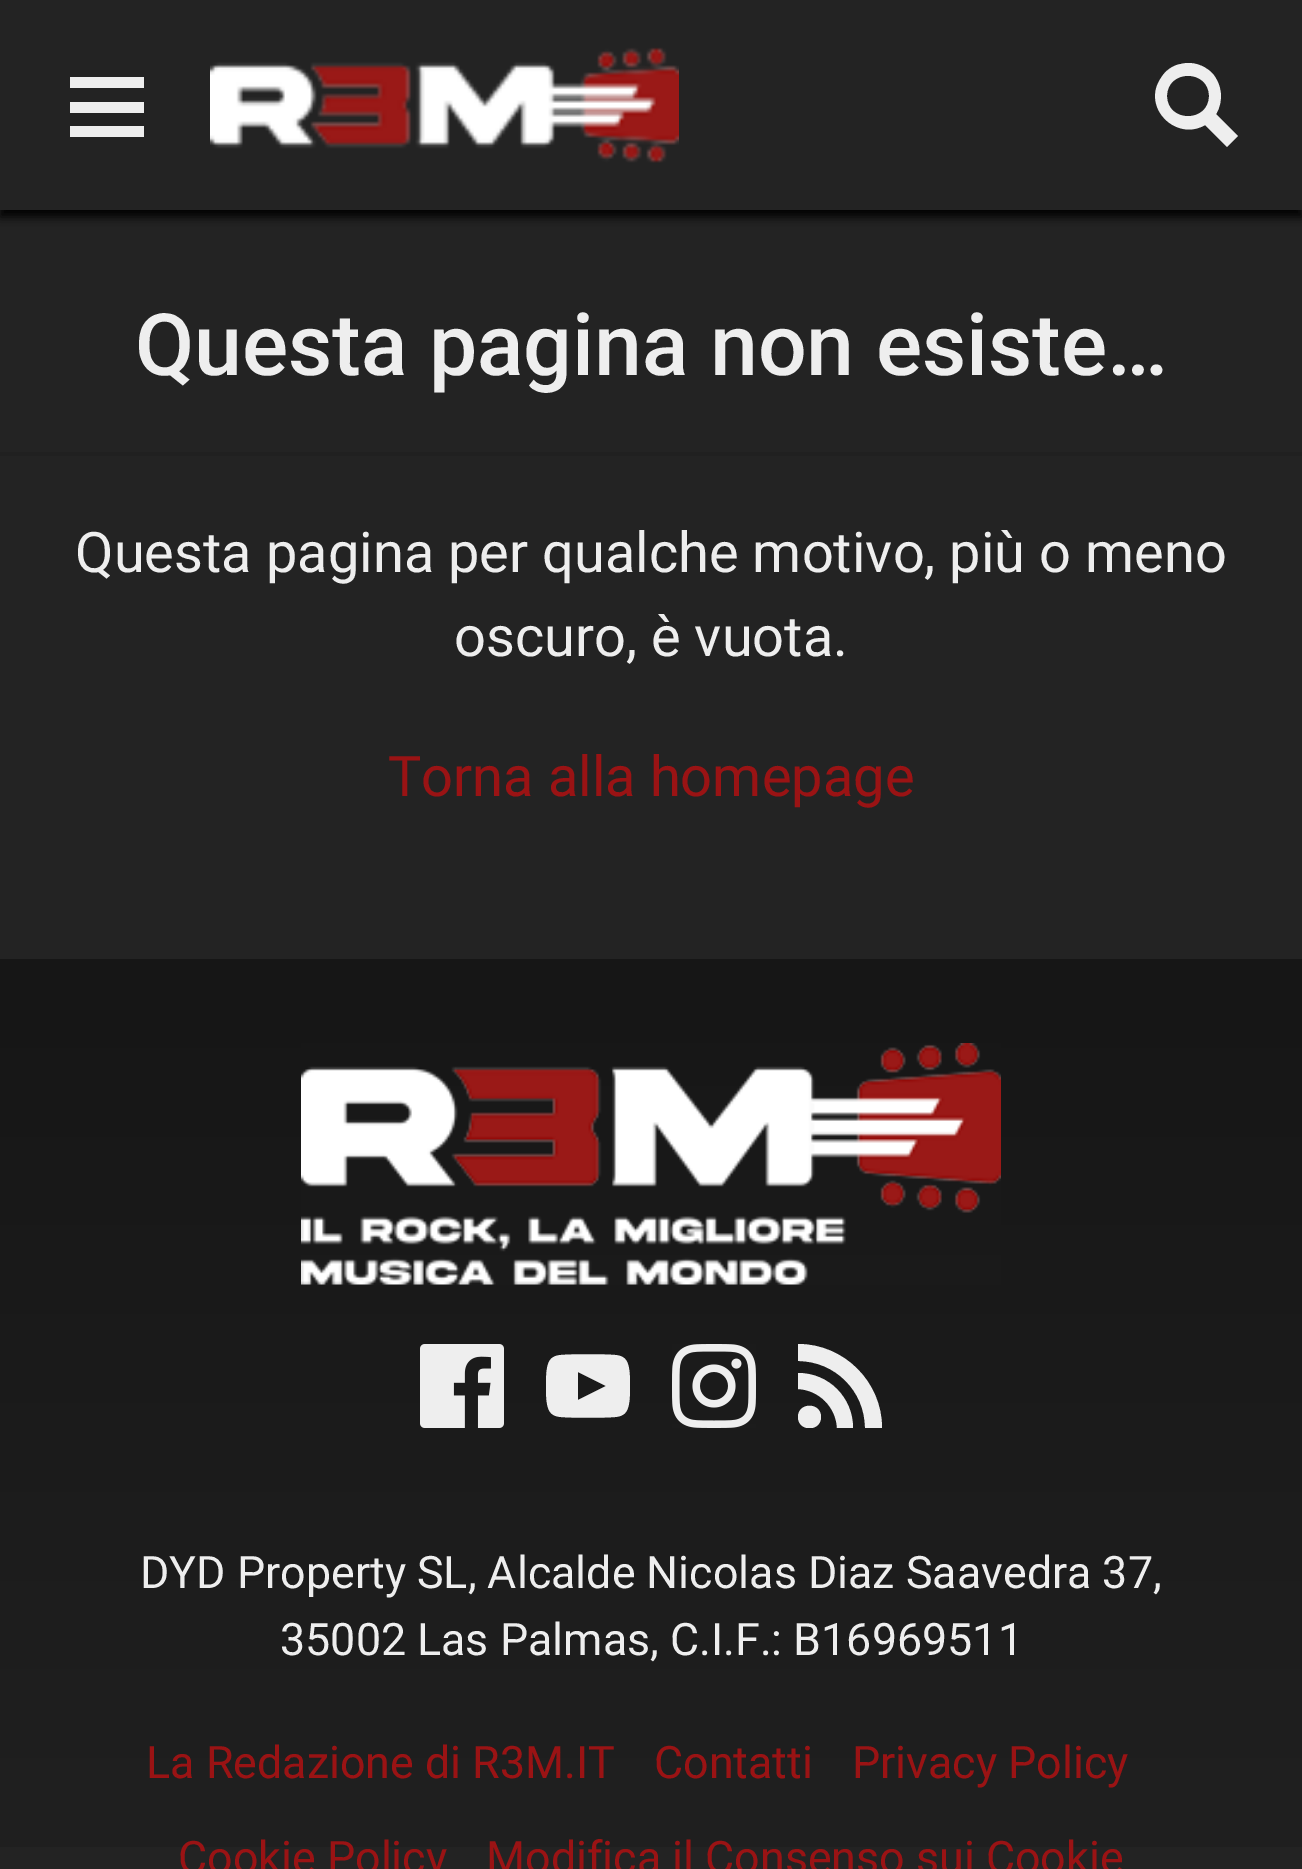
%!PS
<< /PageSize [1302 1869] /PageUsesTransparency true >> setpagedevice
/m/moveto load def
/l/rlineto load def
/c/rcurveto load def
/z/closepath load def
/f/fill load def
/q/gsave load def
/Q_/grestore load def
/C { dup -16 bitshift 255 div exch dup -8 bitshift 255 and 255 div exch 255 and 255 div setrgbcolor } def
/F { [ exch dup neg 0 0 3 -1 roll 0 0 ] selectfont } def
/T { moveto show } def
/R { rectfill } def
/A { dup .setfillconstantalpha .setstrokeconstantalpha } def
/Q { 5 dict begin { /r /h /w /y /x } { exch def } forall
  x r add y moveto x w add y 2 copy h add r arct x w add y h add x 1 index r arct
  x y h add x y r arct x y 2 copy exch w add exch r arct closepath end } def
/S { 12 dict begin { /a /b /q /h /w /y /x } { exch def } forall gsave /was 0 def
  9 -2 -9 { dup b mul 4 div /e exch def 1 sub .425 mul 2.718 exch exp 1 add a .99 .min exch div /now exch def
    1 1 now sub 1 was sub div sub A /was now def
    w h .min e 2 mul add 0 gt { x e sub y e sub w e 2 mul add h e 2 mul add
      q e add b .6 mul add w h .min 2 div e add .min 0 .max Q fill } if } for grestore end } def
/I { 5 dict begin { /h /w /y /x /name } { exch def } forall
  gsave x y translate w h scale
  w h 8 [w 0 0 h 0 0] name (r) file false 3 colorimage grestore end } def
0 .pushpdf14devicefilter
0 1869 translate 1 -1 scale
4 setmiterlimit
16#232323 C
0 0 1302 1869 R
q
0 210 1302 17 rectclip
16#000000 C
0 7 1302 210 0 5 1 S
Q_
16#EEEEEE C
70 77 74 11 R
70 102 74 11 R
70 126 74 11 R
(1.rgb) 210 47 469 116 I
1238 136 m -22 -22 l 8 -13 6 -30 -4 -41 c -8 -8 -20 -12 -31 -9 c -8 1 -16 7 -20 14 c -20 29 15 64 44 47 c 22 22 l z 1167 96 m 0 -27 42 -27 42 0 c 0 27 -42 27 -42 0 c z f
/Roboto-Medium 86 F
(Questa pagina non esiste…) 135 375 T
16#202020 C
0 452 1302 4 R
/Roboto-Regular 56 F
16#EEEEEE C
(Questa pagina per qualche motivo, più o meno) 75 572 T
(oscuro, è vuota.) 454 656 T
16#9A1314 C
(Torna alla homepage) 388 796 T
q 0 959 m 1302 0 l 0 888 l -1302 0 l z clip newpath
<< /ShadingType 2 /ColorSpace /DeviceRGB /Coords [651 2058 651 959] /Extend [true true] /Function << /FunctionType 2 /Domain [0 1] /C0 [.137 .137 .137] /C1 [.086 .086 .086] /N 1 >> >> shfill Q_
(2.rgb) 301 1043 700 242 I
(3.rgb) 420 1344 84 84 I
16#EEEEEE C
615 1355 m -13 -1 -41 -1 -54 0 c -13 1 -15 9 -15 31 c 0 22 2 30 15 31 c 13 1 41 1 54 0 c 13 -1 15 -9 15 -31 c 0 -22 -2 -30 -15 -31 c z 578 1400 m 0 -28 l 28 14 l z f
(4.rgb) 672 1344 84 84 I
q
798 1344 84 84 rectclip
821 1417 m 0 15 -23 15 -23 0 c 0 -15 23 -15 23 0 c z 798 1373 m 0 16 l 21 1 38 18 39 39 c 16 0 l 0 -30 -24 -55 -55 -55 c z 798 1361 m 37 0 67 30 67 67 c 17 0 l 0 -46 -38 -84 -84 -84 c z f
Q_
/Roboto-Regular 44.8 F
(DYD Property SL, Alcalde Nicolas Diaz Saavedra 37,) 140 1588 T
(35002 Las Palmas, C.I.F.: B16969511) 280 1655 T
16#9A1314 C
(La Redazione di R3M.IT) 146 1778 T
(Contatti) 654 1778 T
(Privacy Policy) 852 1778 T
(Cookie Policy) 178 1873 T
(Modifica il Consenso sui Cookie) 486 1873 T
.poppdf14devicefilter showpage
